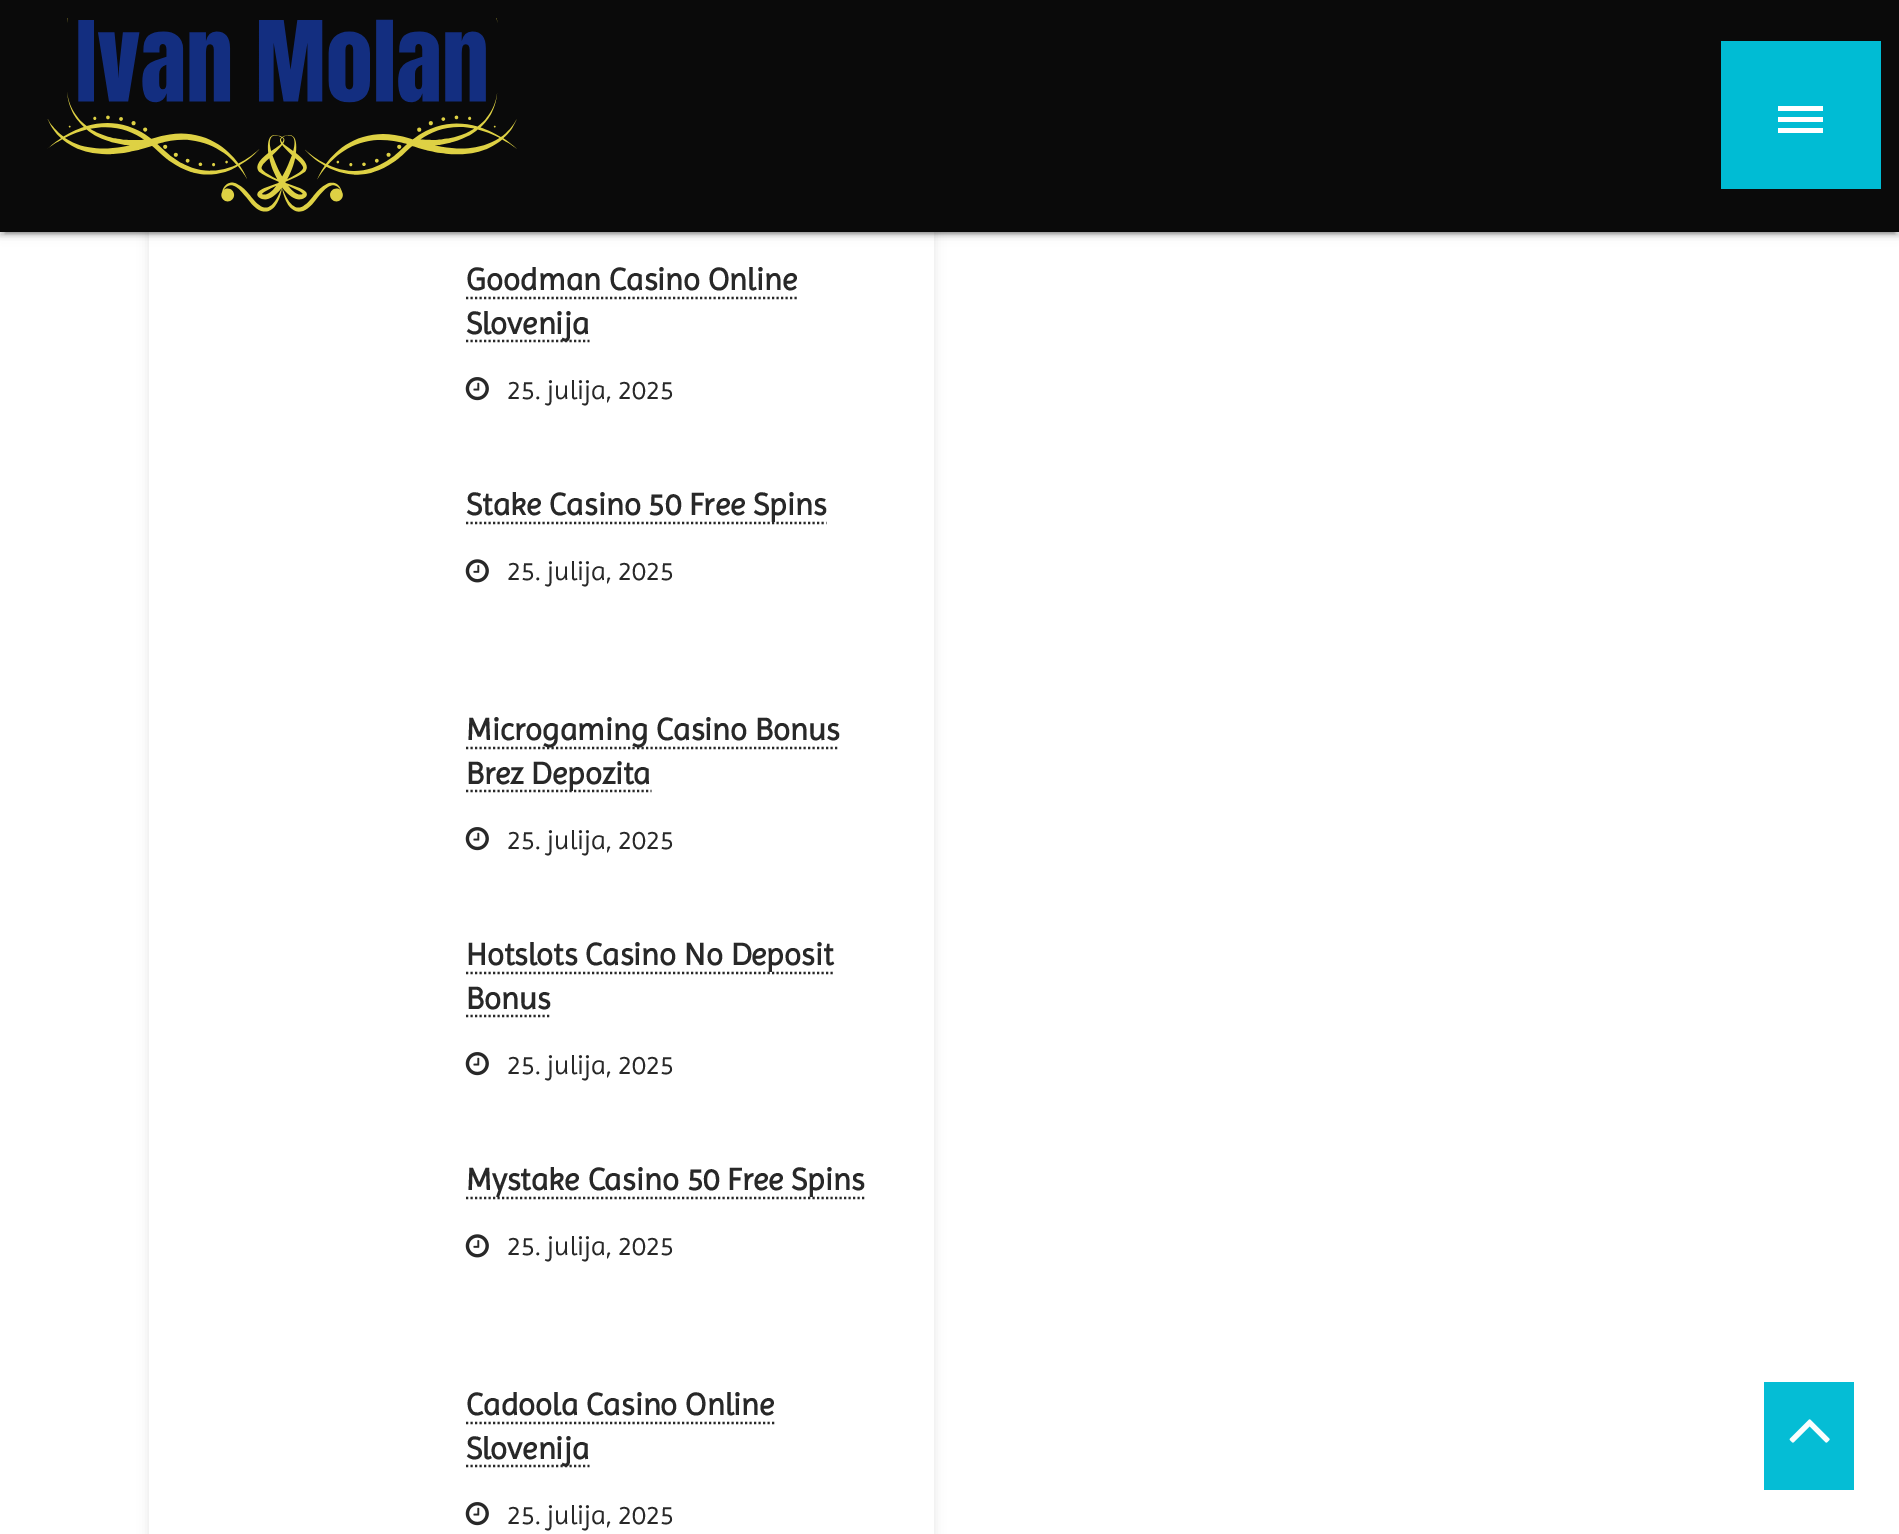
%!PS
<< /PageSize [1899 1534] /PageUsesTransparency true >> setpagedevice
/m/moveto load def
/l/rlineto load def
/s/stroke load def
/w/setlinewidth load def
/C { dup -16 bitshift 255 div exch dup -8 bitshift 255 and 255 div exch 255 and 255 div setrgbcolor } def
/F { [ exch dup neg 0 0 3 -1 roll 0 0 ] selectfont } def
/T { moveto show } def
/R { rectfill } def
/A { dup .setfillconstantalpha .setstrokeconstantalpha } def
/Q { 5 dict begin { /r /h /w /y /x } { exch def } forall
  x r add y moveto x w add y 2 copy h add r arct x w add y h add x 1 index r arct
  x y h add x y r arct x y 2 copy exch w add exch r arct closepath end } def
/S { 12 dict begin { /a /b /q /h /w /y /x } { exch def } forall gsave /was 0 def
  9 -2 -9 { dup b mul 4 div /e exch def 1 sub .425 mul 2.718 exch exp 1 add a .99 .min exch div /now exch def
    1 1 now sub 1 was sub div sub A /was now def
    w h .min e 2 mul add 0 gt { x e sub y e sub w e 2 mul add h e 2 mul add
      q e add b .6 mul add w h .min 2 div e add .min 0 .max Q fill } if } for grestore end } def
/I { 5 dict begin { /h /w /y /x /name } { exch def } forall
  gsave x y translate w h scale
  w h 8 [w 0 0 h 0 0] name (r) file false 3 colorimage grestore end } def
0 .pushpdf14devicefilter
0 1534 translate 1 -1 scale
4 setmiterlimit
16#FFFFFF C
0 0 1899 1534 R
16#000000 C
149 194 785 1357 0 5.5 .1 S
16#FFFFFF C
149 232 785 1302 R
16#000000 C
0 2 1899 232 0 5.5 .12 S
5 11 1890 223 0 1 .2 S
0 5 1899 231 0 2 .14 S
16#0A0A0A C
0 0 1899 232 R
(1.rgb) 47 18 470 194 I
16#00BCD4 C
1721 41 160 148 R
16#FFFFFF C
1778 106 45 5 R
1778 117 45 5 R
1778 128 45 5 R
/Imprima-Bold 31.5 F
16#282828 C
(Goodman Casino Online) 466 290 T
2.2 w
[2.25 2.25] 0 setdash
466 298 m 331 0 l s
466 341 m 123.5 0 l s
(Slovenija) 466 334 T
(2.rgb) 465 377 24 24 I
/Imprima-Regular 27 F
(25. julija, 2025) 507 399 T
466 523 m 360.5 0 l s
/Imprima-Bold 31.5 F
(Stake Casino 50 Free Spins) 466 515 T
(3.rgb) 465 559 24 24 I
/Imprima-Regular 27 F
(25. julija, 2025) 507 580 T
466 748 m 373.5 0 l s
/Imprima-Bold 31.5 F
(Microgaming Casino Bonus) 466 740 T
466 791 m 185.5 0 l s
(Brez Depozita) 466 784 T
(2.rgb) 465 827 24 24 I
/Imprima-Regular 27 F
(25. julija, 2025) 507 849 T
466 973 m 367.5 0 l s
/Imprima-Bold 31.5 F
(Hotslots Casino No Deposit) 466 965 T
(Bonus) 466 1009 T
466 1016 m 84.5 0 l s
(2.rgb) 465 1052 24 24 I
/Imprima-Regular 27 F
(25. julija, 2025) 507 1074 T
466 1198 m 398.5 0 l s
/Imprima-Bold 31.5 F
(Mystake Casino 50 Free Spins) 466 1190 T
(3.rgb) 465 1234 24 24 I
/Imprima-Regular 27 F
(25. julija, 2025) 507 1255 T
/Imprima-Bold 31.5 F
(Cadoola Casino Online) 466 1415 T
466 1423 m 308.5 0 l s
466 1466 m 123.5 0 l s
(Slovenija) 466 1459 T
(2.rgb) 465 1502 24 24 I
/Imprima-Regular 27 F
(25. julija, 2025) 507 1524 T
16#05BDD5 C
1764 1382 90 108 R
(4.rgb) 1789 1419 41 24 I
.poppdf14devicefilter showpage
